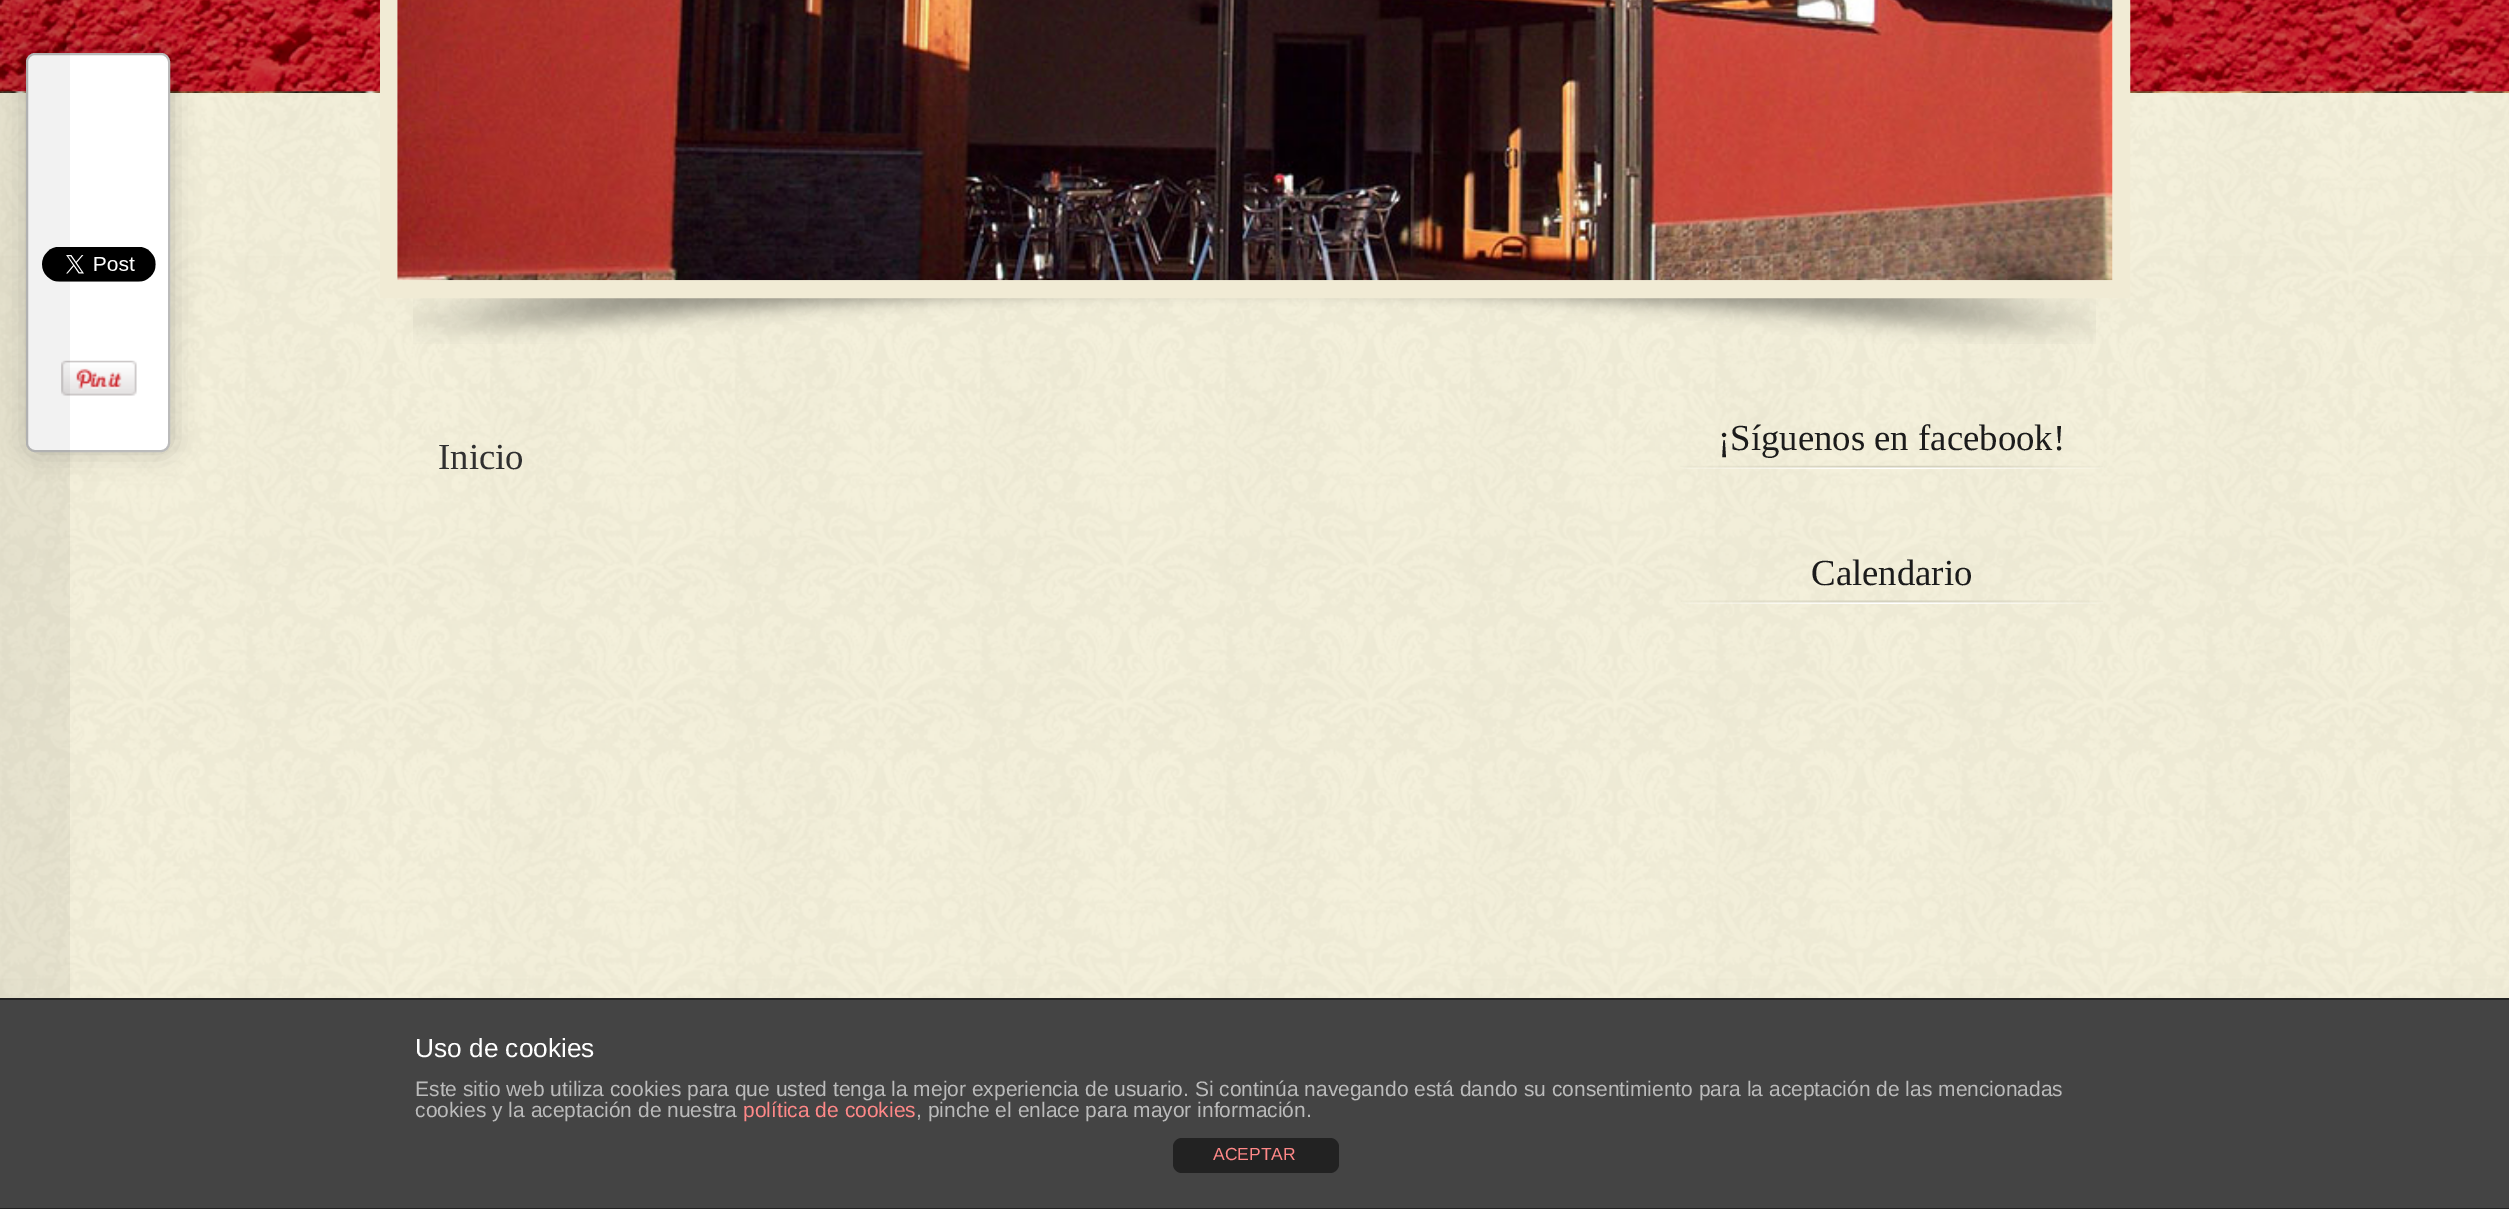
%!PS
<< /PageSize [2509 1209] /PageUsesTransparency true >> setpagedevice
/f/fill load def
/s/stroke load def
/q/gsave load def
/Q_/grestore load def
/w/setlinewidth load def
/C { dup -16 bitshift 255 div exch dup -8 bitshift 255 and 255 div exch 255 and 255 div setrgbcolor } def
/F { [ exch dup neg 0 0 3 -1 roll 0 0 ] selectfont } def
/T { moveto show } def
/R { rectfill } def
/A { dup .setfillconstantalpha .setstrokeconstantalpha } def
/Q { 5 dict begin { /r /h /w /y /x } { exch def } forall
  x r add y moveto x w add y 2 copy h add r arct x w add y h add x 1 index r arct
  x y h add x y r arct x y 2 copy exch w add exch r arct closepath end } def
/S { 12 dict begin { /a /b /q /h /w /y /x } { exch def } forall gsave /was 0 def
  9 -2 -9 { dup b mul 4 div /e exch def 1 sub .425 mul 2.718 exch exp 1 add a .99 .min exch div /now exch def
    1 1 now sub 1 was sub div sub A /was now def
    w h .min e 2 mul add 0 gt { x e sub y e sub w e 2 mul add h e 2 mul add
      q e add b .6 mul add w h .min 2 div e add .min 0 .max Q fill } if } for grestore end } def
/I { 5 dict begin { /h /w /y /x /name } { exch def } forall
  gsave x y translate w h scale
  w h 8 [w 0 0 h 0 0] name (r) file false 3 colorimage grestore end } def
0 .pushpdf14devicefilter
0 1209 translate 1 -1 scale
4 setmiterlimit
16#FFFFFF C
0 0 2509 1209 R
(1.rgb) 0 93 2509 905 I
(2.rgb) 0 91 2509 2 I
(3.rgb) 0 0 2509 92 I
16#000000 C
28 53 144 399 9 13 .2 S
16#FFFFFF C
27 54 142 397 8 Q q f Q_
16#BBBBBB C
2 w
s
(6.rgb) 42 247 114 35 I
(7.rgb) 61 360 76 36 I
0.05 A
16#000000 C
0 0 70 998 R
1 A
(4.rgb) 413 298 1683 46 I
16#F1EBD5 C
18 w
389 -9 1732 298 rectstroke
(5.rgb) 397 0 1716 281 I
/LiberationSerif-Regular 36.75 F
16#303030 C
(Inicio) 438 469 T
(8.rgb) 1680 465 423 4 I
16#1B1B1B C
(¡Síguenos en facebook!) 1718 450 T
(9.rgb) 1681 600 422 4 I
(Calendario) 1811 585 T
16#444444 C
0 1000 2509 208 R
16#222222 C
0 998 2509 2 R
0 1208 2509 1 R
/LiberationSans-Regular 26.25 F
16#FFFFFF C
(Uso de cookies) 415 1057 T
/LiberationSans-Regular 21 F
16#BBBBBB C
(Este sitio web utiliza cookies para que usted tenga la mejor experiencia de usuario. Si continúa navegando está dando su consentimiento para la aceptación de las mencionadas) 415 1096 T
(cookies y la aceptación de nuestra) 415 1117 T
16#FF8888 C
(política de cookies) 743 1117 T
16#BBBBBB C
(, pinche el enlace para mayor información.) 916 1117 T
16#222222 C
1173 1138 166 35 9 Q f
/LiberationSans-Regular 17.5 F
16#FF8888 C
(ACEPTAR) 1213 1160 T
.poppdf14devicefilter showpage
